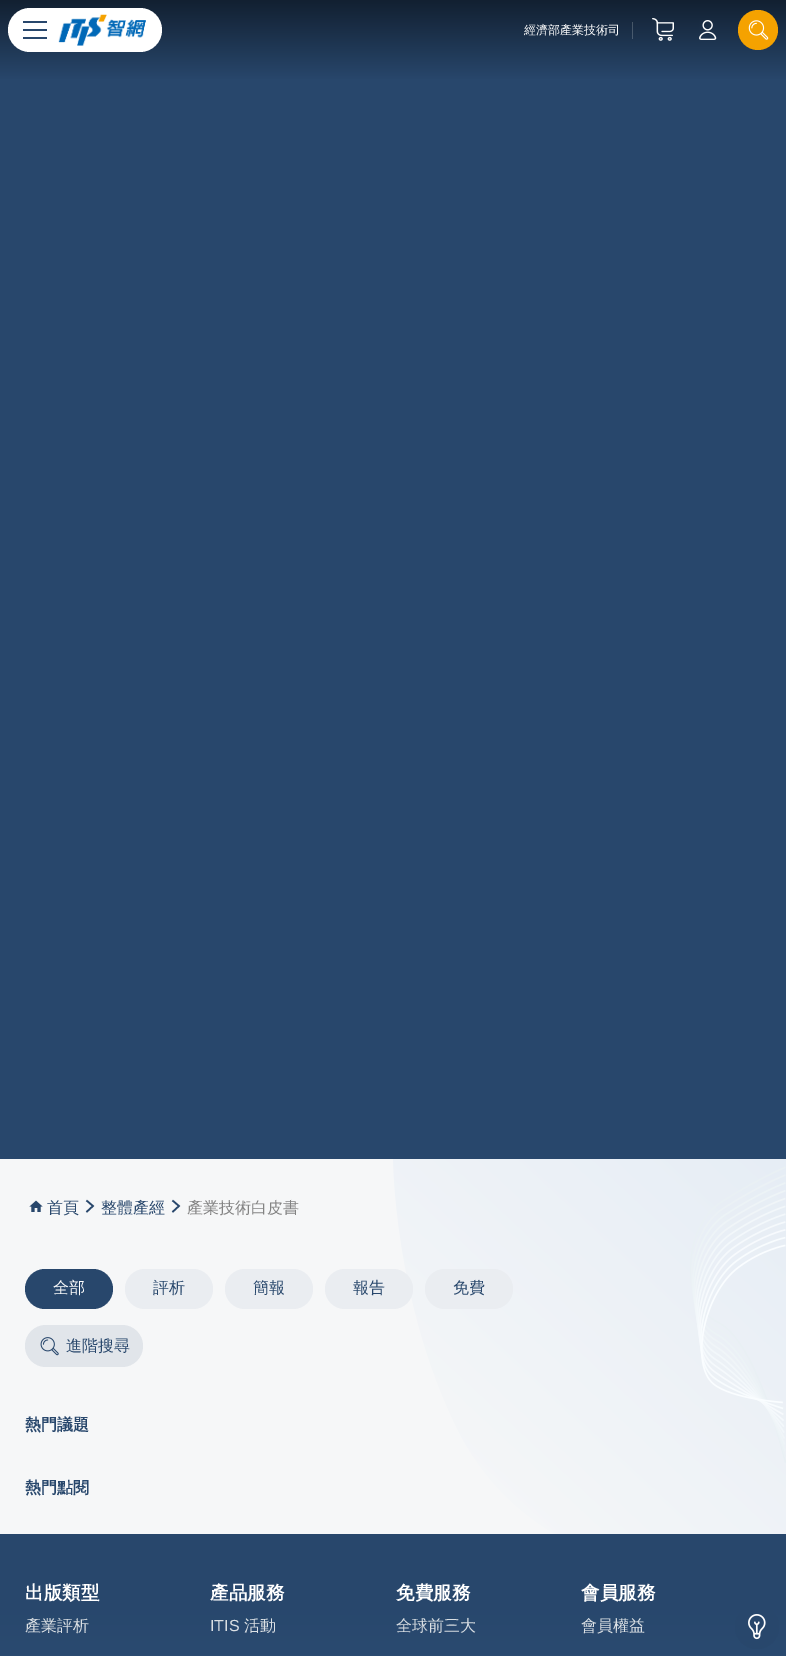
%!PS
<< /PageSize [786 1656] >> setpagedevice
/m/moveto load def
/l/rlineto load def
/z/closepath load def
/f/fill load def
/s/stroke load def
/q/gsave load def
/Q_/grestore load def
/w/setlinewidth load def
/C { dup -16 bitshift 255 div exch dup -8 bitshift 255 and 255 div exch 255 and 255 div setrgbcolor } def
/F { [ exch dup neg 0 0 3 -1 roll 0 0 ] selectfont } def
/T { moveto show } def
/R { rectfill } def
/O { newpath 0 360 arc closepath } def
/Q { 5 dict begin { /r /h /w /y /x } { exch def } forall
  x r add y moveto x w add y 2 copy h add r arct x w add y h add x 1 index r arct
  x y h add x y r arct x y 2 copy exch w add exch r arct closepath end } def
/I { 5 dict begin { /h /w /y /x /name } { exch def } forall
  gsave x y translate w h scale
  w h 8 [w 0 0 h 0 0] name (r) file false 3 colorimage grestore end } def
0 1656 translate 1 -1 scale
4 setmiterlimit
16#F6F7F8 C
0 0 786 1656 R
q 0 0 m 786 0 l 0 80 l -786 0 l z clip newpath
<< /ShadingType 2 /ColorSpace /DeviceRGB /Coords [393 0 393 80] /Extend [true true] /Function << /FunctionType 2 /Domain [0 1] /C0 [.071 .125 .192] /C1 [.157 .278 .424] /N 1 >> >> shfill Q_
16#FFFFFF C
8 8 154 44 22 Q f
16#28476C C
23 21 24 2 R
23 29 24 2 R
23 37 24 2 R
(1.rgb) 58 14 88 32 I
/WenQuanYiZenHei-Medium 12 F
16#FFFFFF C
(經濟部產業技術司) 524 34 T
(2.rgb) 652 18 22 23 I
(3.rgb) 699 20 18 20 I
16#F5A200 C
758 30 20 O f
(4.rgb) 748 20 21 20 I
16#28476C C
0 80 786 1079 R
q 632 22 m 1 0 l 0 17 l -1 0 l z clip newpath
<< /ShadingType 2 /ColorSpace /DeviceRGB /Coords [393 0 393 80] /Extend [true true] /Function << /FunctionType 2 /Domain [0 1] /C0 [.255 .302 .353] /C1 [.325 .424 .537] /N 1 >> >> shfill Q_
(5.rgb) 393 1159 393 375 I
(6.rgb) 29 1200 14 12 I
/WenQuanYiZenHei-Medium 16 F
(首頁) 47 1213 T
1.6 w
86.5 1200.5 m 6.5 5.5 l -6.5 6 l s
(整體產經) 101 1213 T
172.5 1200.5 m 6.5 5.5 l -6.5 6 l s
16#838383 C
(產業技術白皮書) 187 1213 T
16#28476C C
25 1269 88 40 20 Q f
16#FFFFFF C
(全部) 53 1293 T
16#EAEDF1 C
125 1269 88 40 20 Q f
16#28476C C
(評析) 153 1293 T
16#EAEDF1 C
225 1269 88 40 20 Q f
16#28476C C
(簡報) 253 1293 T
16#EAEDF1 C
325 1269 88 40 20 Q f
16#28476C C
(報告) 353 1293 T
16#EAEDF1 C
425 1269 88 40 20 Q f
16#28476C C
(免費) 453 1293 T
16#E1E5EA C
25 1325 118 42 21 Q f
(7.rgb) 40 1337 19 19 I
16#28476C C
(進階搜尋) 66 1351 T
/WenQuanYiZenHei-Bold 16 F
(熱門議題) 25 1430 T
(熱門點閱) 25 1493 T
q 0 1534 m 786 0 l 0 122 l -786 0 l z clip newpath
<< /ShadingType 2 /ColorSpace /DeviceRGB /Coords [393 1534 393 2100] /Extend [true true] /Function << /FunctionType 3 /Domain [0 1] /Functions [<< /FunctionType 2 /Domain [0 1] /C0 [.157 .278 .424] /C1 [.157 .278 .424] /N 1 >> << /FunctionType 2 /Domain [0 1] /C0 [.157 .278 .424] /C1 [.231 .373 .537] /N 1 >>] /Bounds [.1] /Encode [0 1 0 1] >> >> shfill Q_
/WenQuanYiZenHei-Bold 18.5 F
16#FFFFFF C
(出版類型) 25 1599 T
/WenQuanYiZenHei-Medium 16 F
16#DBE0E4 C
(產業評析) 25 1631 T
/WenQuanYiZenHei-Bold 18.5 F
16#FFFFFF C
(產品服務) 210 1599 T
/LiberationSans-Regular 16 F
16#DBE0E4 C
(ITIS) 210 1631 T
/WenQuanYiZenHei-Medium 16 F
(活動) 244 1631 T
/WenQuanYiZenHei-Bold 18.5 F
16#FFFFFF C
(免費服務) 396 1599 T
/WenQuanYiZenHei-Medium 16 F
16#DBE0E4 C
(全球前三大) 396 1631 T
/WenQuanYiZenHei-Bold 18.5 F
16#FFFFFF C
(會員服務) 581 1599 T
/WenQuanYiZenHei-Medium 16 F
16#DBE0E4 C
(會員權益) 581 1631 T
16#28476C C
757 1627 22 O f
(8.rgb) 748 1614 18 26 I
showpage
